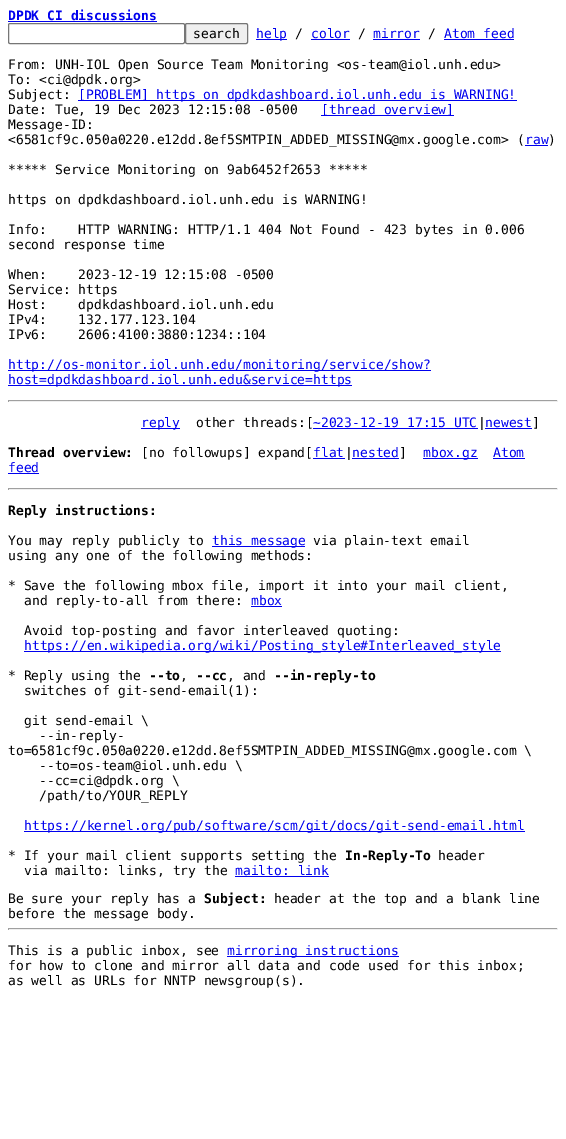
%!PS
<< /PageSize [566 1139] >> setpagedevice
/f/fill load def
/s/stroke load def
/q/gsave load def
/Q_/grestore load def
/C { dup -16 bitshift 255 div exch dup -8 bitshift 255 and 255 div exch 255 and 255 div setrgbcolor } def
/F { [ exch dup neg 0 0 3 -1 roll 0 0 ] selectfont } def
/T { moveto show } def
/R { rectfill } def
/Q { 5 dict begin { /r /h /w /y /x } { exch def } forall
  x r add y moveto x w add y 2 copy h add r arct x w add y h add x 1 index r arct
  x y h add x y r arct x y 2 copy exch w add exch r arct closepath end } def
0 1139 translate 1 -1 scale
4 setmiterlimit
16#FFFFFF C
0 0 566 1139 R
/DejaVuSansMono-Bold 13 F
16#0000EE C
(DPDK CI discussions) 8 20 T
8 21 149 1 R
16#767676 C
8.5 23.5 176 20 1.5 Q s
16#EFEFEF C
185.5 23.5 62 20 1.5 Q q f Q_
16#767676 C
s
/DejaVuSansMono-Regular 13 F
16#000000 C
(search) 193 38 T
16#0000EE C
256 39 31 1 R
(help) 256 38 T
16#000000 C
(/) 295 38 T
16#0000EE C
(color) 311 38 T
311 39 39 1 R
16#000000 C
(/) 358 38 T
16#0000EE C
(mirror) 373 38 T
373 39 47 1 R
16#000000 C
(/) 428 38 T
16#0000EE C
(Atom feed) 444 38 T
444 39 70 1 R
16#000000 C
(From: UNH-IOL Open Source Team Monitoring <os-team@iol.unh.edu>) 8 69 T
(To: <ci@dpdk.org>) 8 84 T
(Subject:) 8 99 T
16#0000EE C
78 100 439 1 R
([PROBLEM] https on dpdkdashboard.iol.unh.edu is WARNING!) 78 99 T
16#000000 C
(Date: Tue, 19 Dec 2023 12:15:08 -0500) 8 114 T
16#0000EE C
321 115 133 1 R
([thread overview]) 321 114 T
16#000000 C
(Message-ID:) 8 129 T
(<6581cf9c.050a0220.e12dd.8ef5SMTPIN_ADDED_MISSING@mx.google.com> \() 8 144 T
16#0000EE C
(raw) 525 144 T
525 145 23 1 R
16#000000 C
(\)) 548 144 T
(***** Service Monitoring on 9ab6452f2653 *****) 8 174 T
(https on dpdkdashboard.iol.unh.edu is WARNING!) 8 204 T
(Info:    HTTP WARNING: HTTP/1.1 404 Not Found - 423 bytes in 0.006) 8 234 T
(second response time) 8 249 T
(When:    2023-12-19 12:15:08 -0500) 8 279 T
(Service: https) 8 294 T
(Host:    dpdkdashboard.iol.unh.edu) 8 309 T
(IPv4:    132.177.123.104) 8 324 T
(IPv6:    2606:4100:3880:1234::104) 8 339 T
16#0000EE C
8 370 423 1 R
(http://os-monitor.iol.unh.edu/monitoring/service/show?) 8 369 T
8 385 344 1 R
(host=dpdkdashboard.iol.unh.edu&service=https) 8 384 T
16#9F9F9F C
8 400 550 1 R
16#EEEEEE C
557 400 1 2 R
8 401 550 1 R
16#9F9F9F C
8 400 1 2 R
16#0000EE C
141 428 39 1 R
(reply) 141 427 T
16#000000 C
(other threads:[) 196 427 T
16#0000EE C
(~2023-12-19 17:15 UTC newest) 313 427 T
313 428 165 1 R
16#000000 C
(|) 478 427 T
16#0000EE C
485 428 47 1 R
16#000000 C
(]) 532 427 T
/DejaVuSansMono-Bold 13 F
(Thread overview:) 8 457 T
/DejaVuSansMono-Regular 13 F
([no followups] expand[) 141 457 T
16#0000EE C
(flat nested) 313 457 T
313 458 32 1 R
16#000000 C
(|) 345 457 T
(]) 399 457 T
16#0000EE C
423 458 55 1 R
(mbox.gz) 423 457 T
(Atom) 493 457 T
493 458 32 1 R
352 458 47 1 R
(feed) 8 472 T
8 473 31 1 R
16#9F9F9F C
8 488 550 1 R
16#EEEEEE C
557 488 1 2 R
8 489 550 1 R
16#9F9F9F C
8 488 1 2 R
/DejaVuSansMono-Bold 13 F
16#000000 C
(Reply instructions:) 8 515 T
/DejaVuSansMono-Regular 13 F
(You may reply publicly to) 8 545 T
16#0000EE C
212 546 93 1 R
(this message) 212 545 T
16#000000 C
(via plain-text email) 313 545 T
(using any one of the following methods:) 8 560 T
(* Save the following mbox file, import it into your mail client,) 8 590 T
(and reply-to-all from there:) 24 605 T
16#0000EE C
(mbox) 251 605 T
251 606 31 1 R
16#000000 C
(Avoid top-posting and favor interleaved quoting:) 24 635 T
16#0000EE C
24 651 477 1 R
(https://en.wikipedia.org/wiki/Posting_style#Interleaved_style) 24 650 T
16#000000 C
(* Reply using the) 8 680 T
/DejaVuSansMono-Bold 13 F
(--to) 149 680 T
/DejaVuSansMono-Regular 13 F
(,) 180 680 T
/DejaVuSansMono-Bold 13 F
(--cc) 196 680 T
/DejaVuSansMono-Regular 13 F
(, and) 227 680 T
/DejaVuSansMono-Bold 13 F
(--in-reply-to) 274 680 T
/DejaVuSansMono-Regular 13 F
(switches of git-send-email\(1\):) 24 695 T
(git send-email \\) 24 725 T
(--in-reply-) 39 740 T
(to=6581cf9c.050a0220.e12dd.8ef5SMTPIN_ADDED_MISSING@mx.google.com \\) 8 755 T
(--to=os-team@iol.unh.edu \\) 39 770 T
(--cc=ci@dpdk.org \\) 39 785 T
(/path/to/YOUR_REPLY) 39 800 T
16#0000EE C
24 831 501 1 R
(https://kernel.org/pub/software/scm/git/docs/git-send-email.html) 24 830 T
16#000000 C
(* If your mail client supports setting the) 8 860 T
/DejaVuSansMono-Bold 13 F
(In-Reply-To) 345 860 T
/DejaVuSansMono-Regular 13 F
(header) 438 860 T
(via mailto: links, try the) 24 875 T
16#0000EE C
(mailto: link) 235 875 T
235 876 94 1 R
16#000000 C
(Be sure your reply has a) 8 903 T
/DejaVuSansMono-Bold 13 F
(Subject:) 204 903 T
/DejaVuSansMono-Regular 13 F
(header at the top and a blank line) 274 903 T
(before the message body.) 8 918 T
16#9F9F9F C
8 928 550 1 R
16#EEEEEE C
557 928 1 2 R
8 929 550 1 R
16#9F9F9F C
8 928 1 2 R
16#000000 C
(This is a public inbox, see) 8 955 T
16#0000EE C
227 956 172 1 R
(mirroring instructions) 227 955 T
16#000000 C
(for how to clone and mirror all data and code used for this inbox;) 8 970 T
(as well as URLs for NNTP newsgroup\(s\).) 8 985 T
showpage
